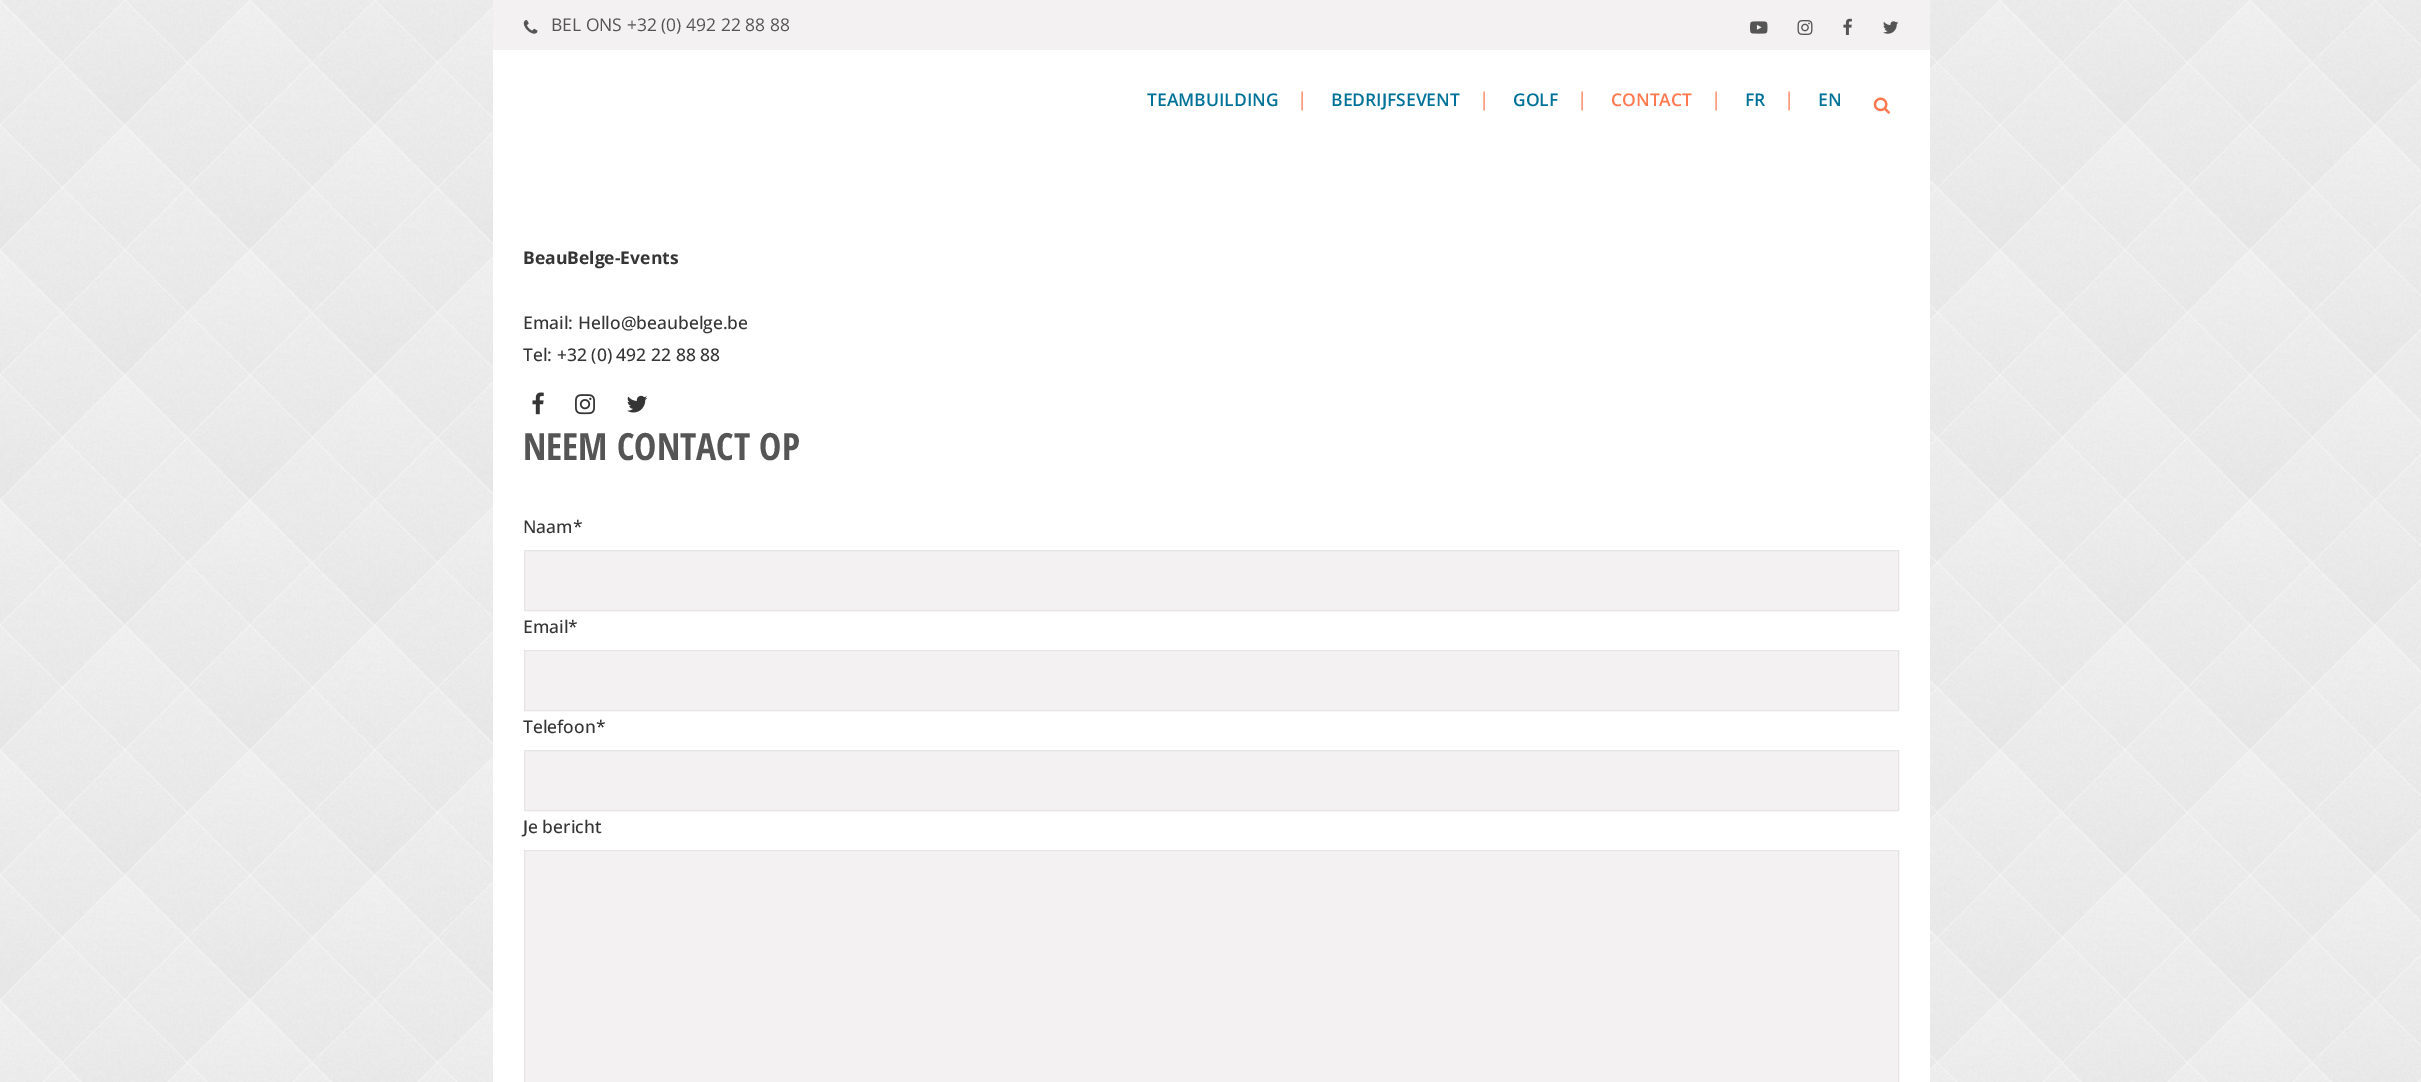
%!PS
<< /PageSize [2421 1082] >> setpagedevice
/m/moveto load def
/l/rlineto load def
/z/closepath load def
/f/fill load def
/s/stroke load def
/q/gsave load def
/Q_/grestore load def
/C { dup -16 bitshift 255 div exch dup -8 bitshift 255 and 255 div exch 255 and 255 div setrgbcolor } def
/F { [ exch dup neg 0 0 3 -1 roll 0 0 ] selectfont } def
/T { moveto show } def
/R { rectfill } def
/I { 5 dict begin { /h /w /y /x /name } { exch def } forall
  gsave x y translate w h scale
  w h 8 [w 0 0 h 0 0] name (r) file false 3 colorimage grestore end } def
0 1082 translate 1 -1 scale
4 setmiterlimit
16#FFFFFF C
0 0 2421 1082 R
(1.rgb) 0 0 2421 1082 I
16#F3F1F1 C
493 0 1437 50 R
(2.rgb) 523 20 15 14 I
/OpenSans-Regular 17.5 F
16#555555 C
(BEL ONS +32 \(0\) 492 22 88 88) 551 31 T
(3.rgb) 1750 21 18 13 I
(4.rgb) 1797 20 16 15 I
(5.rgb) 1843 18 9 17 I
(6.rgb) 1883 21 16 13 I
16#FFFFFF C
493 50 1437 1032 R
/OpenSans-SemiBold 17.5 F
16#007298 C
(TEAMBUILDING) 1147 106 T
/OpenSans-Regular 19 F
16#FE7950 C
(|) 1297 106 T
/OpenSans-SemiBold 17.5 F
16#007298 C
(BEDRIJFSEVENT) 1331 106 T
/OpenSans-Regular 19 F
16#FE7950 C
(|) 1479 106 T
/OpenSans-SemiBold 17.5 F
16#007298 C
(GOLF) 1513 106 T
/OpenSans-Regular 19 F
16#FE7950 C
(|) 1577 106 T
/OpenSans-SemiBold 17.5 F
(CONTACT) 1611 106 T
/OpenSans-Regular 19 F
(|) 1711 106 T
/OpenSans-SemiBold 17.5 F
16#007298 C
(FR) 1745 106 T
/OpenSans-Regular 19 F
16#FE7950 C
(|) 1784 106 T
/OpenSans-SemiBold 17.5 F
16#007298 C
(EN) 1818 106 T
(7.rgb) 1873 97 17 17 I
/OpenSans-Bold 17.5 F
16#353535 C
(BeauBelge-Events) 523 264 T
/OpenSans-Medium 17.5 F
(Email: Hello@beaubelge.be) 523 329 T
(Tel: +32 \(0\) 492 22 88 88) 523 361 T
(8.rgb) 532 392 12 23 I
(9.rgb) 575 394 20 21 I
(10.rgb) 627 395 21 18 I
/OpenSansCondensed-Bold 37.5 F
16#555555 C
(NEEM CONTACT OP) 523 460 T
/OpenSans-Medium 17.5 F
16#353535 C
(Naam*) 523 533 T
16#F3F1F1 C
524.5 550.5 m 1374 0 l 0 60 l -1374 0 l z q f Q_
16#E6E4E4 C
s
16#353535 C
(Email*) 523 633 T
16#F3F1F1 C
524.5 650.5 m 1374 0 l 0 60 l -1374 0 l z q f Q_
16#E6E4E4 C
s
16#353535 C
(Telefoon*) 523 733 T
16#F3F1F1 C
524.5 750.5 m 1374 0 l 0 60 l -1374 0 l z q f Q_
16#E6E4E4 C
s
16#353535 C
(Je bericht) 523 833 T
16#F3F1F1 C
524.5 850.5 m 1374 0 l 0 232 l -1374 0 l z q f Q_
16#E6E4E4 C
s
showpage
